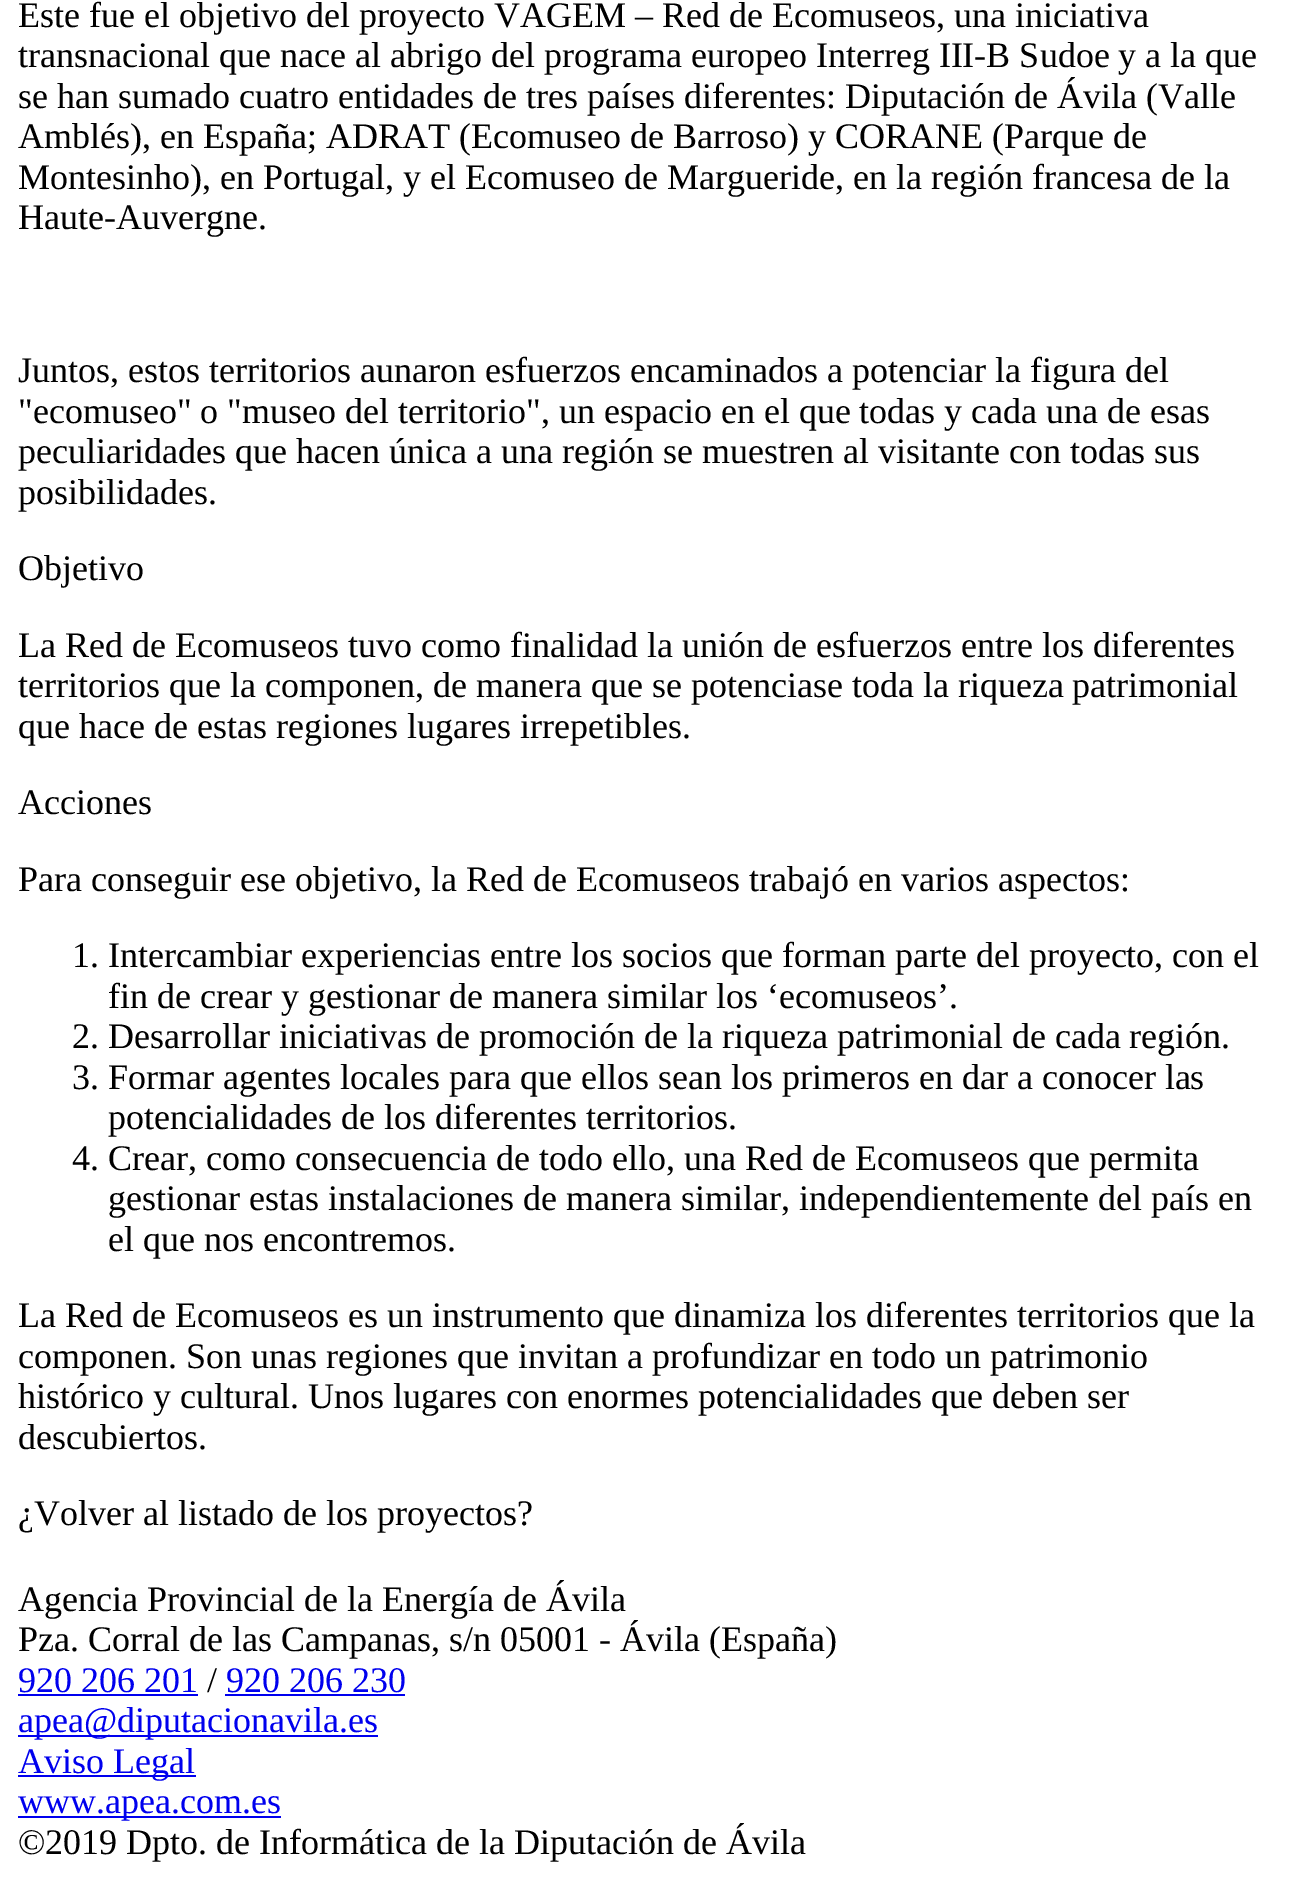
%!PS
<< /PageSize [1300 1879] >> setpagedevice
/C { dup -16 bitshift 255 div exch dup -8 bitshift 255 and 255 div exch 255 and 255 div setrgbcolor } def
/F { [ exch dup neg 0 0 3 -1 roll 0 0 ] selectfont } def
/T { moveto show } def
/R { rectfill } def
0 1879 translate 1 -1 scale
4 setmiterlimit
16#FFFFFF C
0 0 1300 1879 R
/LiberationSerif-Regular 36 F
16#000000 C
(Este fue el objetivo del proyecto VAGEM – Red de Ecomuseos, una iniciativa) 18 27 T
(transnacional que nace al abrigo del programa europeo Interreg III-B Sudoe y a la que) 18 67 T
(se han sumado cuatro entidades de tres países diferentes: Diputación de Ávila \(Valle) 18 108 T
(Amblés\), en España; ADRAT \(Ecomuseo de Barroso\) y CORANE \(Parque de) 18 148 T
(Montesinho\), en Portugal, y el Ecomuseo de Margueride, en la región francesa de la) 18 189 T
(Haute-Auvergne.) 18 229 T
(Juntos, estos territorios aunaron esfuerzos encaminados a potenciar la figura del) 18 382 T
("ecomuseo" o "museo del territorio", un espacio en el que todas y cada una de esas) 18 423 T
(peculiaridades que hacen única a una región se muestren al visitante con todas sus) 18 463 T
(posibilidades.) 18 504 T
(Objetivo) 18 580 T
(La Red de Ecomuseos tuvo como finalidad la unión de esfuerzos entre los diferentes) 18 657 T
(territorios que la componen, de manera que se potenciase toda la riqueza patrimonial) 18 697 T
(que hace de estas regiones lugares irrepetibles.) 18 738 T
(Acciones) 18 814 T
(Para conseguir ese objetivo, la Red de Ecomuseos trabajó en varios aspectos:) 18 891 T
(1. Intercambiar experiencias entre los socios que forman parte del proyecto, con el) 72 967 T
(fin de crear y gestionar de manera similar los ‘ecomuseos’.) 108 1008 T
(2. Desarrollar iniciativas de promoción de la riqueza patrimonial de cada región.) 72 1048 T
(3. Formar agentes locales para que ellos sean los primeros en dar a conocer las) 72 1089 T
(potencialidades de los diferentes territorios.) 108 1129 T
(4. Crear, como consecuencia de todo ello, una Red de Ecomuseos que permita) 72 1170 T
(gestionar estas instalaciones de manera similar, independientemente del país en) 108 1210 T
(el que nos encontremos.) 108 1251 T
(La Red de Ecomuseos es un instrumento que dinamiza los diferentes territorios que la) 18 1327 T
(componen. Son unas regiones que invitan a profundizar en todo un patrimonio) 18 1368 T
(histórico y cultural. Unos lugares con enormes potencialidades que deben ser) 18 1408 T
(descubiertos.) 18 1449 T
(¿Volver al listado de los proyectos?) 18 1525 T
(Agencia Provincial de la Energía de Ávila) 18 1611 T
(Pza. Corral de las Campanas, s/n 05001 - Ávila \(España\)) 18 1651 T
16#0000EE C
(920 206 201) 18 1692 T
18 1694 180 2 R
16#000000 C
(/) 207 1692 T
16#0000EE C
(920 206 230) 226 1692 T
225 1694 180 2 R
18 1735 360 2 R
(apea@diputacionavila.es) 18 1732 T
18 1775 178 2 R
(Aviso Legal) 18 1773 T
18 1816 263 2 R
(www.apea.com.es) 18 1813 T
16#000000 C
(©2019 Dpto. de Informática de la Diputación de Ávila) 18 1854 T
showpage
